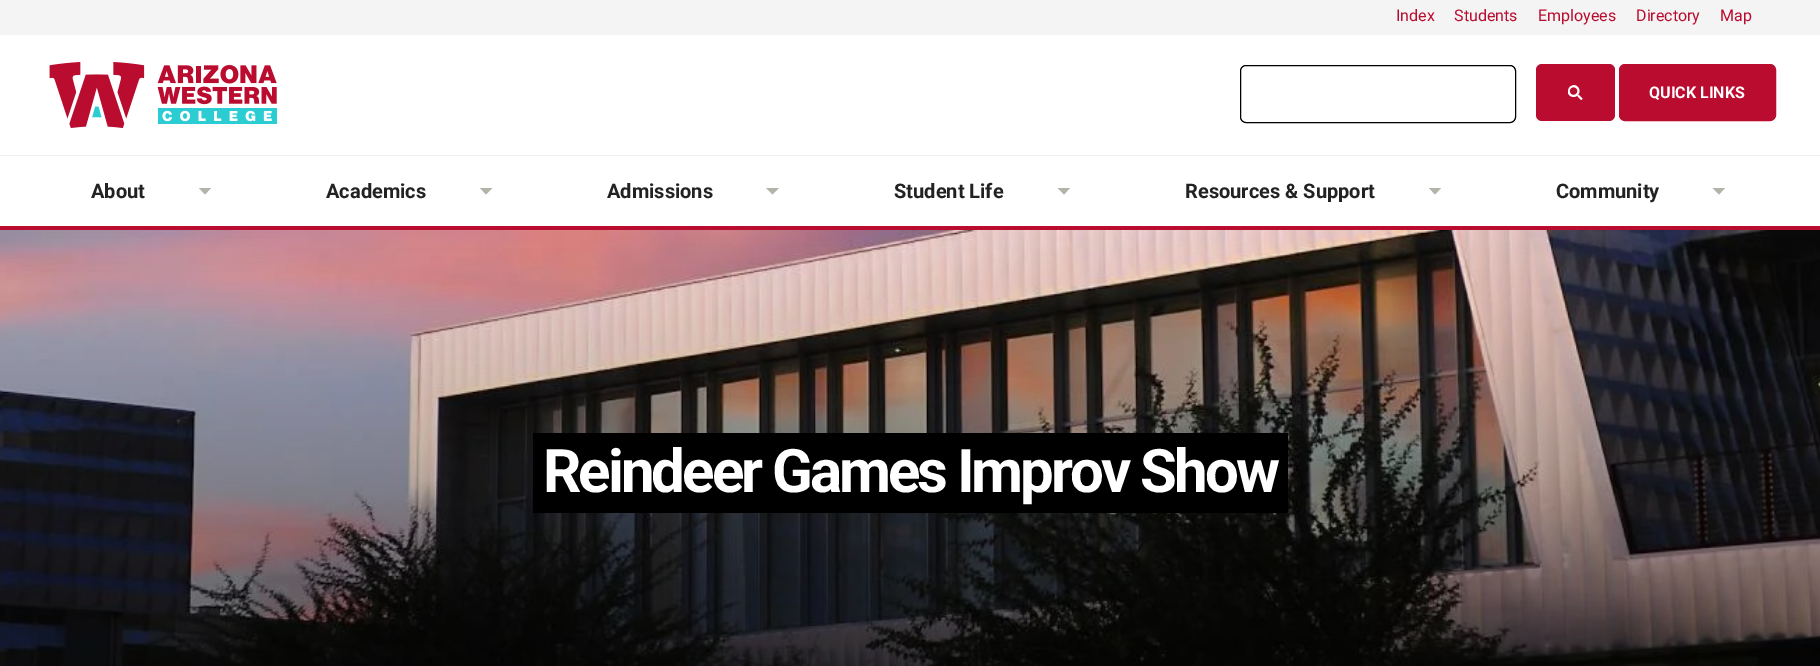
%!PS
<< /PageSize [1820 666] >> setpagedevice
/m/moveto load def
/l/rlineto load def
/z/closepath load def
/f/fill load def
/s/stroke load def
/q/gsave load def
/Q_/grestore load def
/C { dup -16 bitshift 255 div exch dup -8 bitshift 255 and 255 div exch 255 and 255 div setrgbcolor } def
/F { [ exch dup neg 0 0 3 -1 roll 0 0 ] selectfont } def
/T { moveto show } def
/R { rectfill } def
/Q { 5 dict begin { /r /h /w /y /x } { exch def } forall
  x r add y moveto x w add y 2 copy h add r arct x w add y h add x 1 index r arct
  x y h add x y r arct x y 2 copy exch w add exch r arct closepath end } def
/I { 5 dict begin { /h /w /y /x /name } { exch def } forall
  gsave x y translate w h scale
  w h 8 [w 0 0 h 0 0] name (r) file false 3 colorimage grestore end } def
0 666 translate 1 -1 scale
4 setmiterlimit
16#FFFFFF C
0 0 1820 666 R
16#F4F4F4 C
0 0 1820 35 R
/Roboto-Regular 16 F
16#BA0C2F C
(Index) 1396 21 T
(Students) 1454 21 T
(Employees) 1538 21 T
(Directory) 1636 21 T
(Map) 1720 21 T
(1.rgb) 49 62 228 66 I
16#000000 C
1240.5 65.5 275 57 5.5 Q s
16#BA0C2F C
1536 64 79 57 6 Q f
(2.rgb) 1568 85 15 15 I
1619.5 64.5 156 56 5.5 Q q f Q_
s
/Roboto-Bold 16 F
16#FFFFFF C
(QUICK LINKS) 1649 98 T
16#F0F0F0 C
0 155 1820 1 R
16#BA0C2F C
0 226 1820 4 R
/Roboto-Bold 20 F
16#222222 C
(About) 91 198 T
16#B2B4AA C
199 188 m 12 0 l -6 6.5 l z f
16#222222 C
(Academics) 326 198 T
16#B2B4AA C
480 188 m 12.5 0 l -6.5 6.5 l z f
16#222222 C
(Admissions) 607 198 T
16#B2B4AA C
766 188 m 13 0 l -6.5 6.5 l z f
16#222222 C
(Student Life) 894 198 T
16#B2B4AA C
1057.5 188 m 12.5 0 l -6 6.5 l z f
16#222222 C
(Resources & Support) 1185 198 T
16#B2B4AA C
1429 188 m 12 0 l -6 6.5 l z f
16#222222 C
(Community) 1556 198 T
16#B2B4AA C
1712.5 188 m 12.5 0 l -6 6.5 l z f
(3.rgb) 0 230 1820 436 I
16#000000 C
533 433 755 80 R
/Roboto-Bold 60 F
16#FFFFFF C
543 492 m -3 0 (Reindeer Games Improv Show) ashow
showpage
